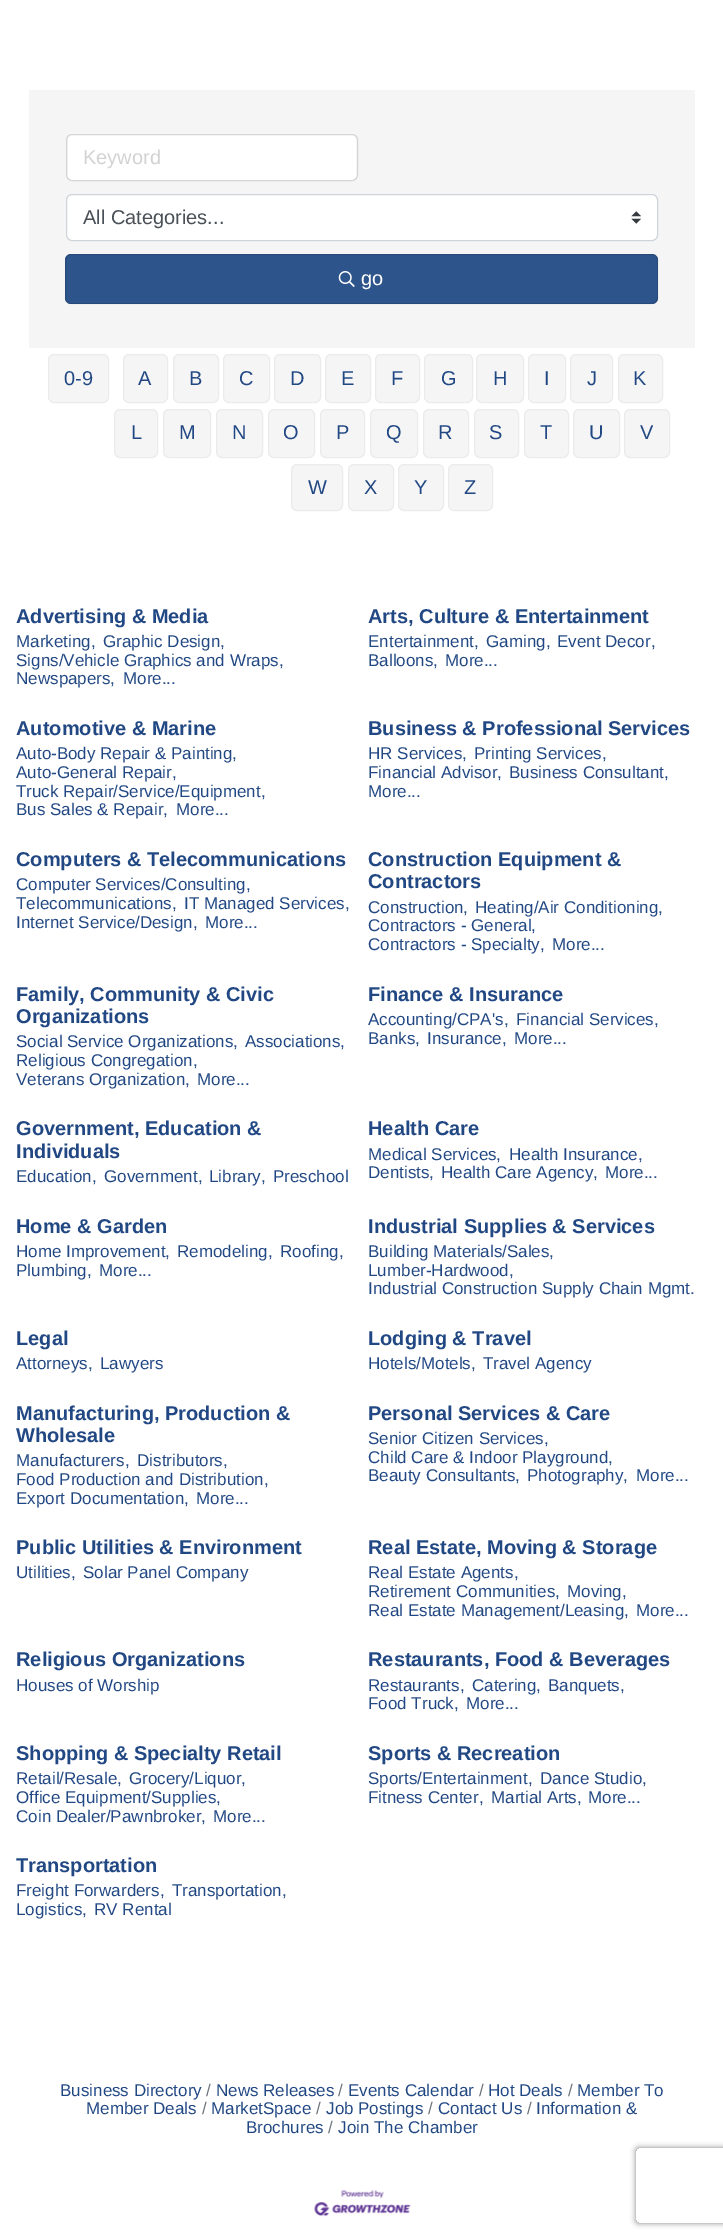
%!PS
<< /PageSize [723 2240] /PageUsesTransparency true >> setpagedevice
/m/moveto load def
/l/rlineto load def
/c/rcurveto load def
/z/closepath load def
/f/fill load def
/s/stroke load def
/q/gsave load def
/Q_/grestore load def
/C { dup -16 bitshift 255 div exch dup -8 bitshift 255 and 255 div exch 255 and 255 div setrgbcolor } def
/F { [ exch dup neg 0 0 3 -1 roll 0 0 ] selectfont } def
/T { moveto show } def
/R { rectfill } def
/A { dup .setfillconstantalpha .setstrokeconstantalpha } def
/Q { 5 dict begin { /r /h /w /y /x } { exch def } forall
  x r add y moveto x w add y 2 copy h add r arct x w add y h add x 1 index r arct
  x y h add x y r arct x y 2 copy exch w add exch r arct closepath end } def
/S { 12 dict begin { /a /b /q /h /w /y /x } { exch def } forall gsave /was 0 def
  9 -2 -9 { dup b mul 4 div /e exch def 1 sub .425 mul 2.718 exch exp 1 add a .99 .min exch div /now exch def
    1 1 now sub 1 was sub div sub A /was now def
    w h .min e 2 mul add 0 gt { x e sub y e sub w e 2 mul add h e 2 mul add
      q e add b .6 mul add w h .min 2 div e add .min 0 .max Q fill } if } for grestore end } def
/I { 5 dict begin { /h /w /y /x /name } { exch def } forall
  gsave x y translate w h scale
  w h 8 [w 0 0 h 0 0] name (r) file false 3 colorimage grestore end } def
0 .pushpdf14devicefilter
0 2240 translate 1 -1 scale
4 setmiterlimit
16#FFFFFF C
0 0 723 2240 R
16#F5F5F5 C
29 90 666 258 R
16#FFFFFF C
68 135 288 45 5 Q f
16#D6D6D6 C
66.5 134.5 291 46 5.5 Q s
/LiberationSans-Regular 20 F
16#D2D2D2 C
(Keyword) 83 164 T
16#FFFFFF C
66 194 592 47 6 Q f
(1.rgb) 631 211 10 13 I
16#CED4DA C
66.5 194.5 591 46 5.5 Q s
16#495057 C
(All Categories...) 83 224 T
16#2D548B C
65 254 593 50 6 Q f
0.12 A
16#000000 C
65.5 254.5 592 49 5.5 Q s
1 A
(2.rgb) 338 271 17 16 I
16#FFFFFF C
(go) 361 285 T
16#F5F5F5 C
48.5 354.5 60 48 5.5 Q q f Q_
16#EBEBEB C
s
16#224884 C
(0-9) 64 385 T
16#F5F5F5 C
123.5 354.5 44 48 5.5 Q q f Q_
16#EBEBEB C
s
16#224884 C
(A) 138 385 T
16#F5F5F5 C
173.5 354.5 45 48 5.5 Q q f Q_
16#EBEBEB C
s
16#224884 C
(B) 189 385 T
16#F5F5F5 C
223.5 354.5 46 48 5.5 Q q f Q_
16#EBEBEB C
s
16#224884 C
(C) 239 385 T
16#F5F5F5 C
274.5 354.5 46 48 5.5 Q q f Q_
16#EBEBEB C
s
16#224884 C
(D) 290 385 T
16#F5F5F5 C
325.5 354.5 45 48 5.5 Q q f Q_
16#EBEBEB C
s
16#224884 C
(E) 341 385 T
16#F5F5F5 C
375.5 354.5 44 48 5.5 Q q f Q_
16#EBEBEB C
s
16#224884 C
(F) 391 385 T
16#F5F5F5 C
424.5 354.5 48 48 5.5 Q q f Q_
16#EBEBEB C
s
16#224884 C
(G) 441 385 T
16#F5F5F5 C
476.5 354.5 47 48 5.5 Q q f Q_
16#EBEBEB C
s
16#224884 C
(H) 493 385 T
16#F5F5F5 C
528.5 354.5 37 48 5.5 Q q f Q_
16#EBEBEB C
s
16#224884 C
(I) 544 385 T
16#F5F5F5 C
570.5 354.5 42 48 5.5 Q q f Q_
16#EBEBEB C
s
16#224884 C
(J) 587 385 T
16#F5F5F5 C
618.5 354.5 44 48 5.5 Q q f Q_
16#EBEBEB C
s
16#224884 C
(K) 633 385 T
16#F5F5F5 C
114.5 409.5 43 48 5.5 Q q f Q_
16#EBEBEB C
s
16#224884 C
(L) 131 439 T
16#F5F5F5 C
163.5 409.5 47 48 5.5 Q q f Q_
16#EBEBEB C
s
16#224884 C
(M) 179 439 T
16#F5F5F5 C
216.5 409.5 46 48 5.5 Q q f Q_
16#EBEBEB C
s
16#224884 C
(N) 232 439 T
16#F5F5F5 C
268.5 409.5 46 48 5.5 Q q f Q_
16#EBEBEB C
s
16#224884 C
(O) 283 439 T
16#F5F5F5 C
320.5 409.5 44 48 5.5 Q q f Q_
16#EBEBEB C
s
16#224884 C
(P) 336 439 T
16#F5F5F5 C
370.5 409.5 47 48 5.5 Q q f Q_
16#EBEBEB C
s
16#224884 C
(Q) 386 439 T
16#F5F5F5 C
423.5 409.5 45 48 5.5 Q q f Q_
16#EBEBEB C
s
16#224884 C
(R) 438 439 T
16#F5F5F5 C
474.5 409.5 44 48 5.5 Q q f Q_
16#EBEBEB C
s
16#224884 C
(S) 489 439 T
16#F5F5F5 C
524.5 409.5 44 48 5.5 Q q f Q_
16#EBEBEB C
s
16#224884 C
(T) 540 439 T
16#F5F5F5 C
573.5 409.5 46 48 5.5 Q q f Q_
16#EBEBEB C
s
16#224884 C
(U) 589 439 T
16#F5F5F5 C
624.5 409.5 45 48 5.5 Q q f Q_
16#EBEBEB C
s
16#224884 C
(V) 640 439 T
16#F5F5F5 C
291.5 464.5 51 46 5.5 Q q f Q_
16#EBEBEB C
s
16#224884 C
(W) 308 494 T
16#F5F5F5 C
348.5 464.5 45 46 5.5 Q q f Q_
16#EBEBEB C
s
16#224884 C
(X) 364 494 T
16#F5F5F5 C
398.5 464.5 45 46 5.5 Q q f Q_
16#EBEBEB C
s
16#224884 C
(Y) 414 494 T
16#F5F5F5 C
448.5 464.5 44 46 5.5 Q q f Q_
16#EBEBEB C
s
16#224884 C
(Z) 464 494 T
/LiberationSans-Bold 20 F
(Advertising & Media) 16 623 T
/LiberationSans-Regular 17 F
(Marketing,) 16 647 T
(Graphic Design,) 103 647 T
(Signs/Vehicle Graphics and Wraps,) 16 666 T
(Newspapers,) 16 684 T
(More...) 123 684 T
/LiberationSans-Bold 20 F
(Arts, Culture & Entertainment) 368 623 T
/LiberationSans-Regular 17 F
(Entertainment,) 368 647 T
(Gaming,) 486 647 T
(Event Decor,) 557 647 T
(Balloons,) 368 666 T
(More...) 445 666 T
/LiberationSans-Bold 20 F
(Automotive & Marine) 16 735 T
/LiberationSans-Regular 17 F
(Auto-Body Repair & Painting,) 16 759 T
(Auto-General Repair,) 16 778 T
(Truck Repair/Service/Equipment,) 16 797 T
(Bus Sales & Repair,) 16 815 T
(More...) 176 815 T
/LiberationSans-Bold 20 F
(Business & Professional Services) 368 735 T
/LiberationSans-Regular 17 F
(HR Services,) 368 759 T
(Printing Services,) 474 759 T
(Financial Advisor,) 368 778 T
(Business Consultant,) 509 778 T
(More...) 368 797 T
/LiberationSans-Bold 20 F
(Computers & Telecommunications) 16 866 T
/LiberationSans-Regular 17 F
(Computer Services/Consulting,) 16 890 T
(Telecommunications,) 16 909 T
(IT Managed Services,) 184 909 T
(Internet Service/Design,) 16 928 T
(More...) 205 928 T
/LiberationSans-Bold 20 F
(Construction Equipment &) 368 866 T
(Contractors) 368 888 T
/LiberationSans-Regular 17 F
(Construction,) 368 913 T
(Heating/Air Conditioning,) 475 913 T
(Contractors - General,) 368 931 T
(Contractors - Specialty,) 368 950 T
(More...) 552 950 T
/LiberationSans-Bold 20 F
(Family, Community & Civic) 16 1001 T
(Organizations) 16 1023 T
/LiberationSans-Regular 17 F
(Social Service Organizations,) 16 1047 T
(Associations,) 245 1047 T
(Religious Congregation,) 16 1066 T
(Veterans Organization,) 16 1085 T
(More...) 197 1085 T
/LiberationSans-Bold 20 F
(Finance & Insurance) 368 1001 T
/LiberationSans-Regular 17 F
(Accounting/CPA's,) 368 1025 T
(Financial Services,) 516 1025 T
(Banks,) 368 1044 T
(Insurance,) 427 1044 T
(More...) 514 1044 T
/LiberationSans-Bold 20 F
(Government, Education &) 16 1135 T
(Individuals) 16 1158 T
/LiberationSans-Regular 17 F
(Education,) 16 1182 T
(Government,) 104 1182 T
(Library,) 209 1182 T
(Preschool) 273 1182 T
/LiberationSans-Bold 20 F
(Health Care) 368 1135 T
/LiberationSans-Regular 17 F
(Medical Services,) 368 1160 T
(Health Insurance,) 509 1160 T
(Dentists,) 368 1178 T
(Health Care Agency,) 441 1178 T
(More...) 605 1178 T
/LiberationSans-Bold 20 F
(Home & Garden) 16 1233 T
/LiberationSans-Regular 17 F
(Home Improvement,) 16 1257 T
(Remodeling,) 177 1257 T
(Roofing,) 280 1257 T
(Plumbing,) 16 1276 T
(More...) 99 1276 T
/LiberationSans-Bold 20 F
(Industrial Supplies & Services) 368 1233 T
/LiberationSans-Regular 17 F
(Building Materials/Sales,) 368 1257 T
(Lumber-Hardwood,) 368 1276 T
(Industrial Construction Supply Chain Mgmt.) 368 1294 T
/LiberationSans-Bold 20 F
(Legal) 16 1345 T
/LiberationSans-Regular 17 F
(Attorneys,) 16 1369 T
(Lawyers) 100 1369 T
/LiberationSans-Bold 20 F
(Lodging & Travel) 368 1345 T
/LiberationSans-Regular 17 F
(Hotels/Motels,) 368 1369 T
(Travel Agency) 483 1369 T
/LiberationSans-Bold 20 F
(Manufacturing, Production &) 16 1420 T
(Wholesale) 16 1442 T
/LiberationSans-Regular 17 F
(Manufacturers,) 16 1466 T
(Distributors,) 137 1466 T
(Food Production and Distribution,) 16 1485 T
(Export Documentation,) 16 1504 T
(More...) 196 1504 T
/LiberationSans-Bold 20 F
(Personal Services & Care) 368 1420 T
/LiberationSans-Regular 17 F
(Senior Citizen Services,) 368 1444 T
(Child Care & Indoor Playground,) 368 1463 T
(Beauty Consultants,) 368 1481 T
(Photography,) 527 1481 T
(More...) 636 1481 T
/LiberationSans-Bold 20 F
(Public Utilities & Environment) 16 1554 T
/LiberationSans-Regular 17 F
(Utilities,) 16 1578 T
(Solar Panel Company) 83 1578 T
/LiberationSans-Bold 20 F
(Real Estate, Moving & Storage) 368 1554 T
/LiberationSans-Regular 17 F
(Real Estate Agents,) 368 1578 T
(Retirement Communities,) 368 1597 T
(Moving,) 567 1597 T
(Real Estate Management/Leasing,) 368 1616 T
(More...) 636 1616 T
/LiberationSans-Bold 20 F
(Religious Organizations) 16 1666 T
/LiberationSans-Regular 17 F
(Houses of Worship) 16 1691 T
/LiberationSans-Bold 20 F
(Restaurants, Food & Beverages) 368 1666 T
/LiberationSans-Regular 17 F
(Restaurants,) 368 1691 T
(Catering,) 472 1691 T
(Banquets,) 548 1691 T
(Food Truck,) 368 1709 T
(More...) 466 1709 T
/LiberationSans-Bold 20 F
(Shopping & Specialty Retail) 16 1760 T
/LiberationSans-Regular 17 F
(Retail/Resale,) 16 1784 T
(Grocery/Liquor,) 129 1784 T
(Office Equipment/Supplies,) 16 1803 T
(Coin Dealer/Pawnbroker,) 16 1822 T
(More...) 213 1822 T
/LiberationSans-Bold 20 F
(Sports & Recreation) 368 1760 T
/LiberationSans-Regular 17 F
(Sports/Entertainment,) 368 1784 T
(Dance Studio,) 540 1784 T
(Fitness Center,) 368 1803 T
(Martial Arts,) 491 1803 T
(More...) 588 1803 T
/LiberationSans-Bold 20 F
(Transportation) 16 1872 T
/LiberationSans-Regular 17 F
(Freight Forwarders,) 16 1896 T
(Transportation,) 172 1896 T
(Logistics,) 16 1915 T
(RV Rental) 94 1915 T
(Business Directory) 60 2096 T
16#6C757D C
(/) 568 2096 T
16#224884 C
(Member To) 577 2096 T
(Member Deals) 86 2114 T
16#6C757D C
(/) 206 2096 T
16#224884 C
(News Releases) 216 2096 T
16#6C757D C
(/) 338 2096 T
16#224884 C
(Events Calendar) 348 2096 T
16#6C757D C
(/) 479 2096 T
16#224884 C
(Hot Deals) 488 2096 T
16#6C757D C
(/) 202 2114 T
16#224884 C
(MarketSpace) 211 2114 T
16#6C757D C
(/) 527 2114 T
16#224884 C
(Information &) 536 2114 T
(Brochures) 246 2133 T
16#6C757D C
(/) 316 2114 T
16#224884 C
(Job Postings) 326 2114 T
16#6C757D C
(/) 428 2114 T
16#224884 C
(Contact Us) 438 2114 T
16#6C757D C
(/) 328 2133 T
16#224884 C
(Join The Chamber) 338 2133 T
(3.rgb) 314 2190 97 27 I
q
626 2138 m 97 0 l 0 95 l -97 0 l z 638.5 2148 m 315 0 l 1.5 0 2.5 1 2.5 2.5 c 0 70 l 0 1.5 -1 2.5 -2.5 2.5 c -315 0 l -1.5 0 -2.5 -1 -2.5 -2.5 c 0 -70 l 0 -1.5 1 -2.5 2.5 -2.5 c z eoclip newpath
16#808080 C
636 2148 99 75 2.5 3 1 S
Q_
.poppdf14devicefilter showpage
